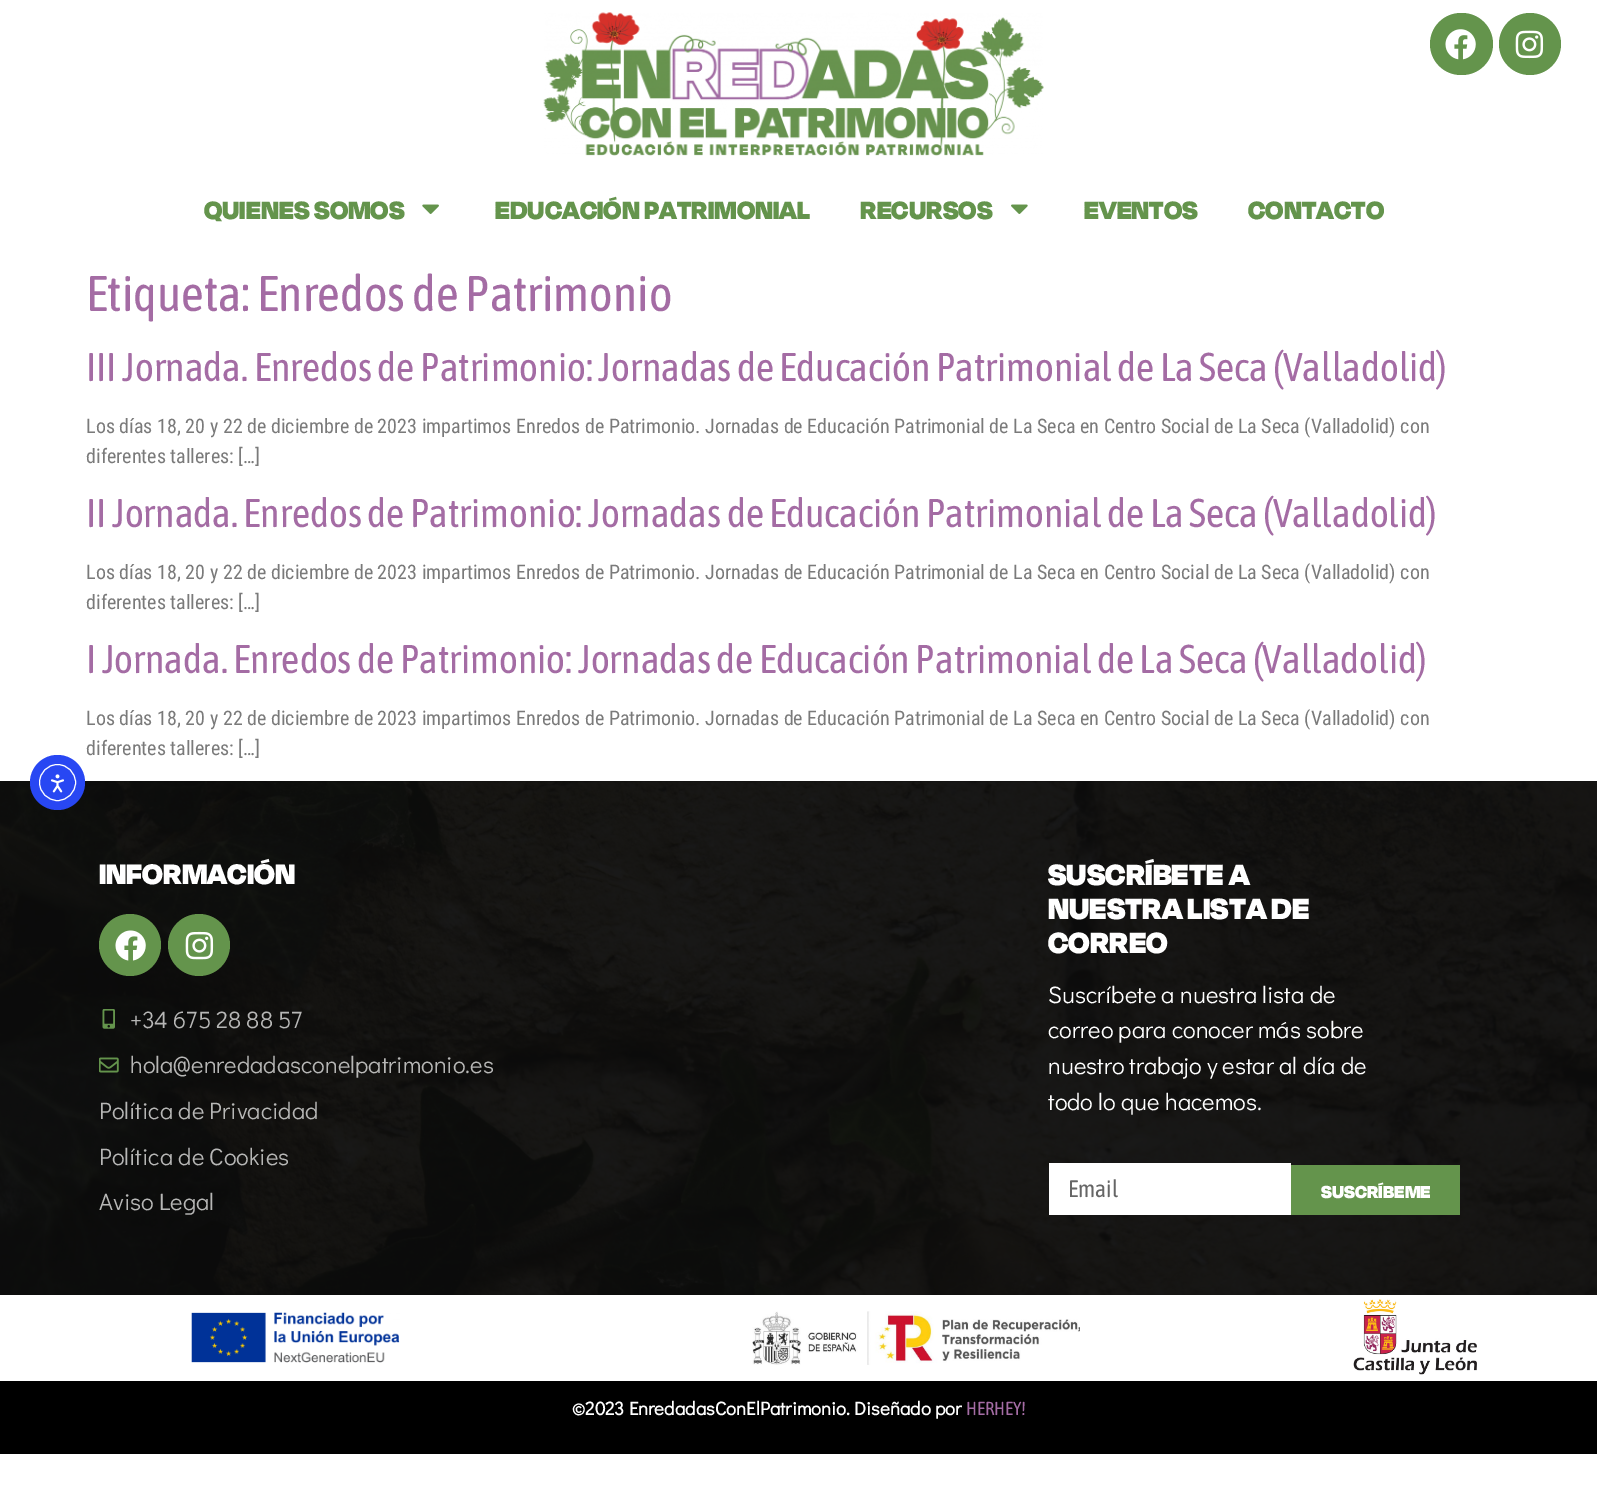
%!PS
<< /PageSize [1597 1510] >> setpagedevice
/f/fill load def
/s/stroke load def
/C { dup -16 bitshift 255 div exch dup -8 bitshift 255 and 255 div exch 255 and 255 div setrgbcolor } def
/F { [ exch dup neg 0 0 3 -1 roll 0 0 ] selectfont } def
/T { moveto show } def
/R { rectfill } def
/O { newpath 0 360 arc closepath } def
/Q { 5 dict begin { /r /h /w /y /x } { exch def } forall
  x r add y moveto x w add y 2 copy h add r arct x w add y h add x 1 index r arct
  x y h add x y r arct x y 2 copy exch w add exch r arct closepath end } def
/I { 5 dict begin { /h /w /y /x /name } { exch def } forall
  gsave x y translate w h scale
  w h 8 [w 0 0 h 0 0] name (r) file false 3 colorimage grestore end } def
0 1510 translate 1 -1 scale
4 setmiterlimit
16#FFFFFF C
0 0 1597 1510 R
16#64944C C
1430 13 63 62 31 Q f
(1.rgb) 1445 29 31 31 I
1530 44 31 O f
(2.rgb) 1515 30 29 29 I
(3.rgb) 543 12 501 144 I
/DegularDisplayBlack-Black 28.75 F
(QUIENES SOMOS) 204 219 T
(4.rgb) 422 204 17 10 I
(EDUCACIÓN PATRIMONIAL) 495 219 T
(RECURSOS) 860 219 T
(5.rgb) 1011 204 17 10 I
(EVENTOS) 1084 219 T
(CONTACTO) 1248 219 T
/AsapCondensed-Regular 50 F
16#A46CA4 C
(Etiqueta: Enredos de Patrimonio) 86 311 T
/AsapCondensed-Regular 40 F
(III Jornada. Enredos de Patrimonio: Jornadas de Educación Patrimonial de La Seca \(Valladolid\)) 86 381 T
/RobotoCondensed-Regular 20 F
16#7A7A7A C
(Los días 18, 20 y 22 de diciembre de 2023 impartimos Enredos de Patrimonio. Jornadas de Educación Patrimonial de La Seca en Centro Social de La Seca \(Valladolid\) con) 86 433 T
(diferentes talleres: […]) 86 463 T
/AsapCondensed-Regular 40 F
16#A46CA4 C
(II Jornada. Enredos de Patrimonio: Jornadas de Educación Patrimonial de La Seca \(Valladolid\)) 86 527 T
/RobotoCondensed-Regular 20 F
16#7A7A7A C
(Los días 18, 20 y 22 de diciembre de 2023 impartimos Enredos de Patrimonio. Jornadas de Educación Patrimonial de La Seca en Centro Social de La Seca \(Valladolid\) con) 86 579 T
(diferentes talleres: […]) 86 609 T
/AsapCondensed-Regular 40 F
16#A46CA4 C
(I Jornada. Enredos de Patrimonio: Jornadas de Educación Patrimonial de La Seca \(Valladolid\)) 86 673 T
/RobotoCondensed-Regular 20 F
16#7A7A7A C
(Los días 18, 20 y 22 de diciembre de 2023 impartimos Enredos de Patrimonio. Jornadas de Educación Patrimonial de La Seca en Centro Social de La Seca \(Valladolid\) con) 86 725 T
(diferentes talleres: […]) 86 755 T
(7.rgb) 0 781 1597 514 I
16#2847F3 C
57.5 782.5 27.5 O f
16#FFFFFF C
57.5 782.5 18 O s
(6.rgb) 50 774 14 19 I
/DegularDisplayBlack-Black 32.5 F
(INFORMACIÓN) 99 884 T
16#64944C C
130 945 31 O f
(8.rgb) 115 930 31 31 I
199 945 31 O f
(9.rgb) 185 931 29 29 I
(10.rgb) 102 1009 13 20 I
/DidactGothic-Regular 23.75 F
16#B7B7B6 C
(+34 675 28 88 57) 130 1028 T
(11.rgb) 99 1057 20 16 I
(hola@enredadasconelpatrimonio.es) 130 1073 T
(Política de Privacidad) 99 1119 T
(Política de Cookies) 99 1165 T
(Aviso Legal) 99 1210 T
/DegularDisplayBlack-Black 33.75 F
16#FFFFFF C
(SUSCRÍBETE A) 1048 885 T
(NUESTRA LISTA DE) 1048 919 T
(CORREO) 1048 953 T
/DidactGothic-Regular 23.75 F
(Suscríbete a nuestra lista de) 1048 1003 T
(correo para conocer más sobre) 1048 1038 T
(nuestro trabajo y estar al día de) 1048 1074 T
(todo lo que hacemos.) 1048 1110 T
1049 1163 242 52 R
/AsapCondensed-Regular 23.75 F
16#666666 C
(Email) 1068 1197 T
16#64944C C
1291 1165 169 50 R
/DegularDisplayBlack-Black 20 F
16#FFFFFF C
(SUSCRÍBEME) 1321 1198 T
(12.rgb) 191 1312 209 51 I
(13.rgb) 752 1311 328 54 I
(14.rgb) 1353 1299 124 76 I
16#000000 C
0 1381 1597 73 R
/DidactGothic-Bold 18.75 F
16#FFFFFF C
(©2023 EnredadasConElPatrimonio. Diseñado por) 572 1415 T
/AsapCondensed-Regular 18.75 F
16#A46CA4 C
(HERHEY!) 966 1415 T
showpage
